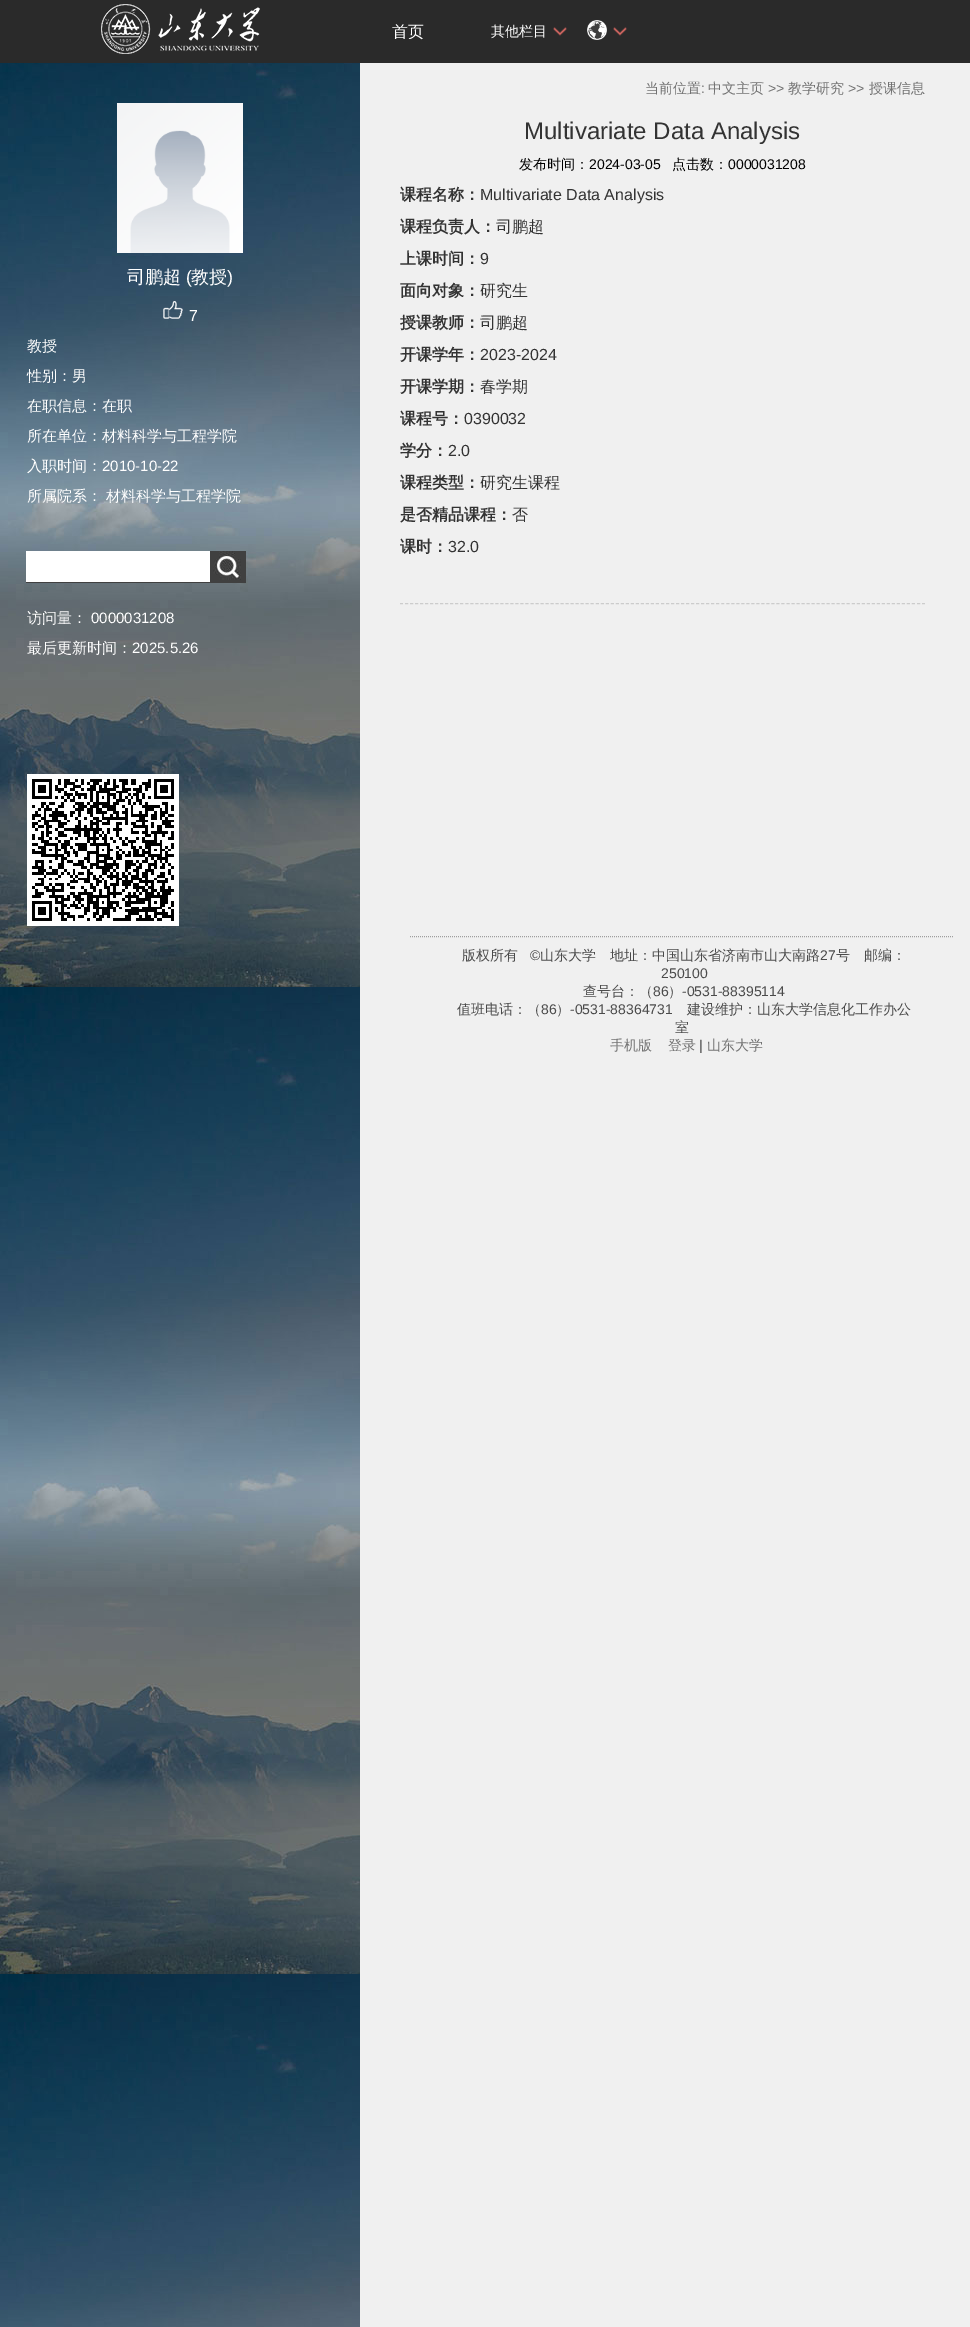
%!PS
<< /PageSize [970 2327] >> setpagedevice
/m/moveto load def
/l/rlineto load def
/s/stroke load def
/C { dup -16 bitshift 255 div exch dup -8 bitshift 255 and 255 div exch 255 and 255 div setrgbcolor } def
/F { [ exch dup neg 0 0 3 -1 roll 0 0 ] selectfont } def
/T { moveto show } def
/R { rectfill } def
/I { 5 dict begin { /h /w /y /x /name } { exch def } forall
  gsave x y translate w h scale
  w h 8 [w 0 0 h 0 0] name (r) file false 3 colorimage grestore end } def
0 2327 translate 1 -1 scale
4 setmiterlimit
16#F0F0F0 C
0 0 970 2327 R
(1.rgb) 0 63 360 2264 I
16#2A2A2A C
0 0 970 63 R
(2.rgb) 101 4 159 50 I
(3.rgb) 117 103 126 150 I
/WenQuanYiZenHei-Medium 18 F
16#FFFFFF C
(司鹏超) 127 283 T
/LiberationSans-Regular 18 F
(\() 186 283 T
/WenQuanYiZenHei-Medium 18 F
(教授) 191 283 T
/LiberationSans-Regular 18 F
(\)) 227 283 T
(4.rgb) 163 301 20 18 I
/LiberationSans-Regular 16 F
(7) 189 321 T
/WenQuanYiZenHei-Medium 15 F
(教授) 27 351 T
(性别：男) 27 381 T
(在职信息：在职) 27 411 T
(所在单位：材料科学与工程学院) 27 441 T
(入职时间：) 27 471 T
/LiberationSans-Regular 15 F
(2010-10-22) 102 471 T
/WenQuanYiZenHei-Medium 15 F
(所属院系：) 27 501 T
(材料科学与工程学院) 106 501 T
16#404040 C
26 551 220 32 R
16#FFFFFF C
26 551 184 31 R
(5.rgb) 213 551 28 29 I
(访问量：) 27 623 T
/LiberationSans-Regular 15 F
(0000031208) 91 623 T
/WenQuanYiZenHei-Medium 15 F
(最后更新时间：) 27 653 T
/LiberationSans-Regular 15 F
(2025.5.26) 132 653 T
27 774 152 152 R
(6.rgb) 32 779 142 142 I
/WenQuanYiZenHei-Medium 16 F
(首页) 392 37 T
(7.rgb) 553 27 14 9 I
/WenQuanYiZenHei-Medium 14 F
(其他栏目) 491 36 T
(7.rgb) 613 27 14 9 I
(8.rgb) 587 20 20 20 I
16#727272 C
(当前位置) 645 93 T
/LiberationSans-Regular 14 F
(:) 701 93 T
/WenQuanYiZenHei-Medium 14 F
(中文主页) 708 93 T
/LiberationSans-Regular 14 F
(>>) 768 93 T
/WenQuanYiZenHei-Medium 14 F
(教学研究) 788 93 T
/LiberationSans-Regular 14 F
(>>) 848 93 T
/WenQuanYiZenHei-Medium 14 F
(授课信息) 869 93 T
/LiberationSans-Regular 24 F
16#333333 C
(Multivariate Data Analysis) 524 139 T
/WenQuanYiZenHei-Medium 14 F
16#000000 C
(发布时间：) 519 169 T
/LiberationSans-Regular 14 F
(2024-03-05) 589 169 T
/WenQuanYiZenHei-Medium 14 F
(点击数：) 672 169 T
/LiberationSans-Regular 14 F
(0000031208) 728 169 T
/WenQuanYiZenHei-Bold 16 F
16#333333 C
(课程名称：) 400 200 T
/LiberationSans-Regular 16 F
(Multivariate Data Analysis) 480 200 T
/WenQuanYiZenHei-Bold 16 F
(课程负责人：) 400 232 T
/WenQuanYiZenHei-Medium 16 F
(司鹏超) 496 232 T
/WenQuanYiZenHei-Bold 16 F
(上课时间：) 400 264 T
/LiberationSans-Regular 16 F
(9) 480 264 T
/WenQuanYiZenHei-Bold 16 F
(面向对象：) 400 296 T
/WenQuanYiZenHei-Medium 16 F
(研究生) 480 296 T
/WenQuanYiZenHei-Bold 16 F
(授课教师：) 400 328 T
/WenQuanYiZenHei-Medium 16 F
(司鹏超) 480 328 T
/WenQuanYiZenHei-Bold 16 F
(开课学年：) 400 360 T
/LiberationSans-Regular 16 F
(2023-2024) 480 360 T
/WenQuanYiZenHei-Bold 16 F
(开课学期：) 400 392 T
/WenQuanYiZenHei-Medium 16 F
(春学期) 480 392 T
/WenQuanYiZenHei-Bold 16 F
(课程号：) 400 424 T
/LiberationSans-Regular 16 F
(0390032) 464 424 T
/WenQuanYiZenHei-Bold 16 F
(学分：) 400 456 T
/LiberationSans-Regular 16 F
(2.0) 448 456 T
/WenQuanYiZenHei-Bold 16 F
(课程类型：) 400 488 T
/WenQuanYiZenHei-Medium 16 F
(研究生课程) 480 488 T
/WenQuanYiZenHei-Bold 16 F
(是否精品课程：) 400 520 T
/WenQuanYiZenHei-Medium 16 F
(否) 512 520 T
/WenQuanYiZenHei-Bold 16 F
(课时：) 400 552 T
/LiberationSans-Regular 16 F
(32.0) 448 552 T
16#CCCCCC C
[3 2.02] 0 setdash
400 603.5 m 525 0 l s
16#9E9E9E C
[1 1] 0 setdash
410 936.5 m 543 0 l s
/WenQuanYiZenHei-Medium 14 F
16#4B4B4B C
(版权所有) 462 960 T
/LiberationSans-Regular 14 F
(©) 530 960 T
/WenQuanYiZenHei-Medium 14 F
(山东大学　地址：中国山东省济南市山大南路) 540 960 T
/LiberationSans-Regular 14 F
(27) 820 960 T
/WenQuanYiZenHei-Medium 14 F
(号　邮编：) 836 960 T
/LiberationSans-Regular 14 F
(250100) 661 978 T
/WenQuanYiZenHei-Medium 14 F
(查号台：（) 583 996 T
/LiberationSans-Regular 14 F
(86) 653 996 T
/WenQuanYiZenHei-Medium 14 F
(）) 668 996 T
/LiberationSans-Regular 14 F
(-0531-88395114) 682 996 T
/WenQuanYiZenHei-Medium 14 F
(值班电话：（) 457 1014 T
/LiberationSans-Regular 14 F
(86) 541 1014 T
/WenQuanYiZenHei-Medium 14 F
(）) 556 1014 T
/LiberationSans-Regular 14 F
(-0531-88364731) 570 1014 T
/WenQuanYiZenHei-Medium 14 F
(建设维护：山东大学信息化工作办公) 687 1014 T
(室) 675 1032 T
16#727272 C
(手机版) 610 1050 T
(登录) 668 1050 T
/LiberationSans-Regular 14 F
16#4B4B4B C
(|) 699 1050 T
/WenQuanYiZenHei-Medium 14 F
16#727272 C
(山东大学) 707 1050 T
showpage
